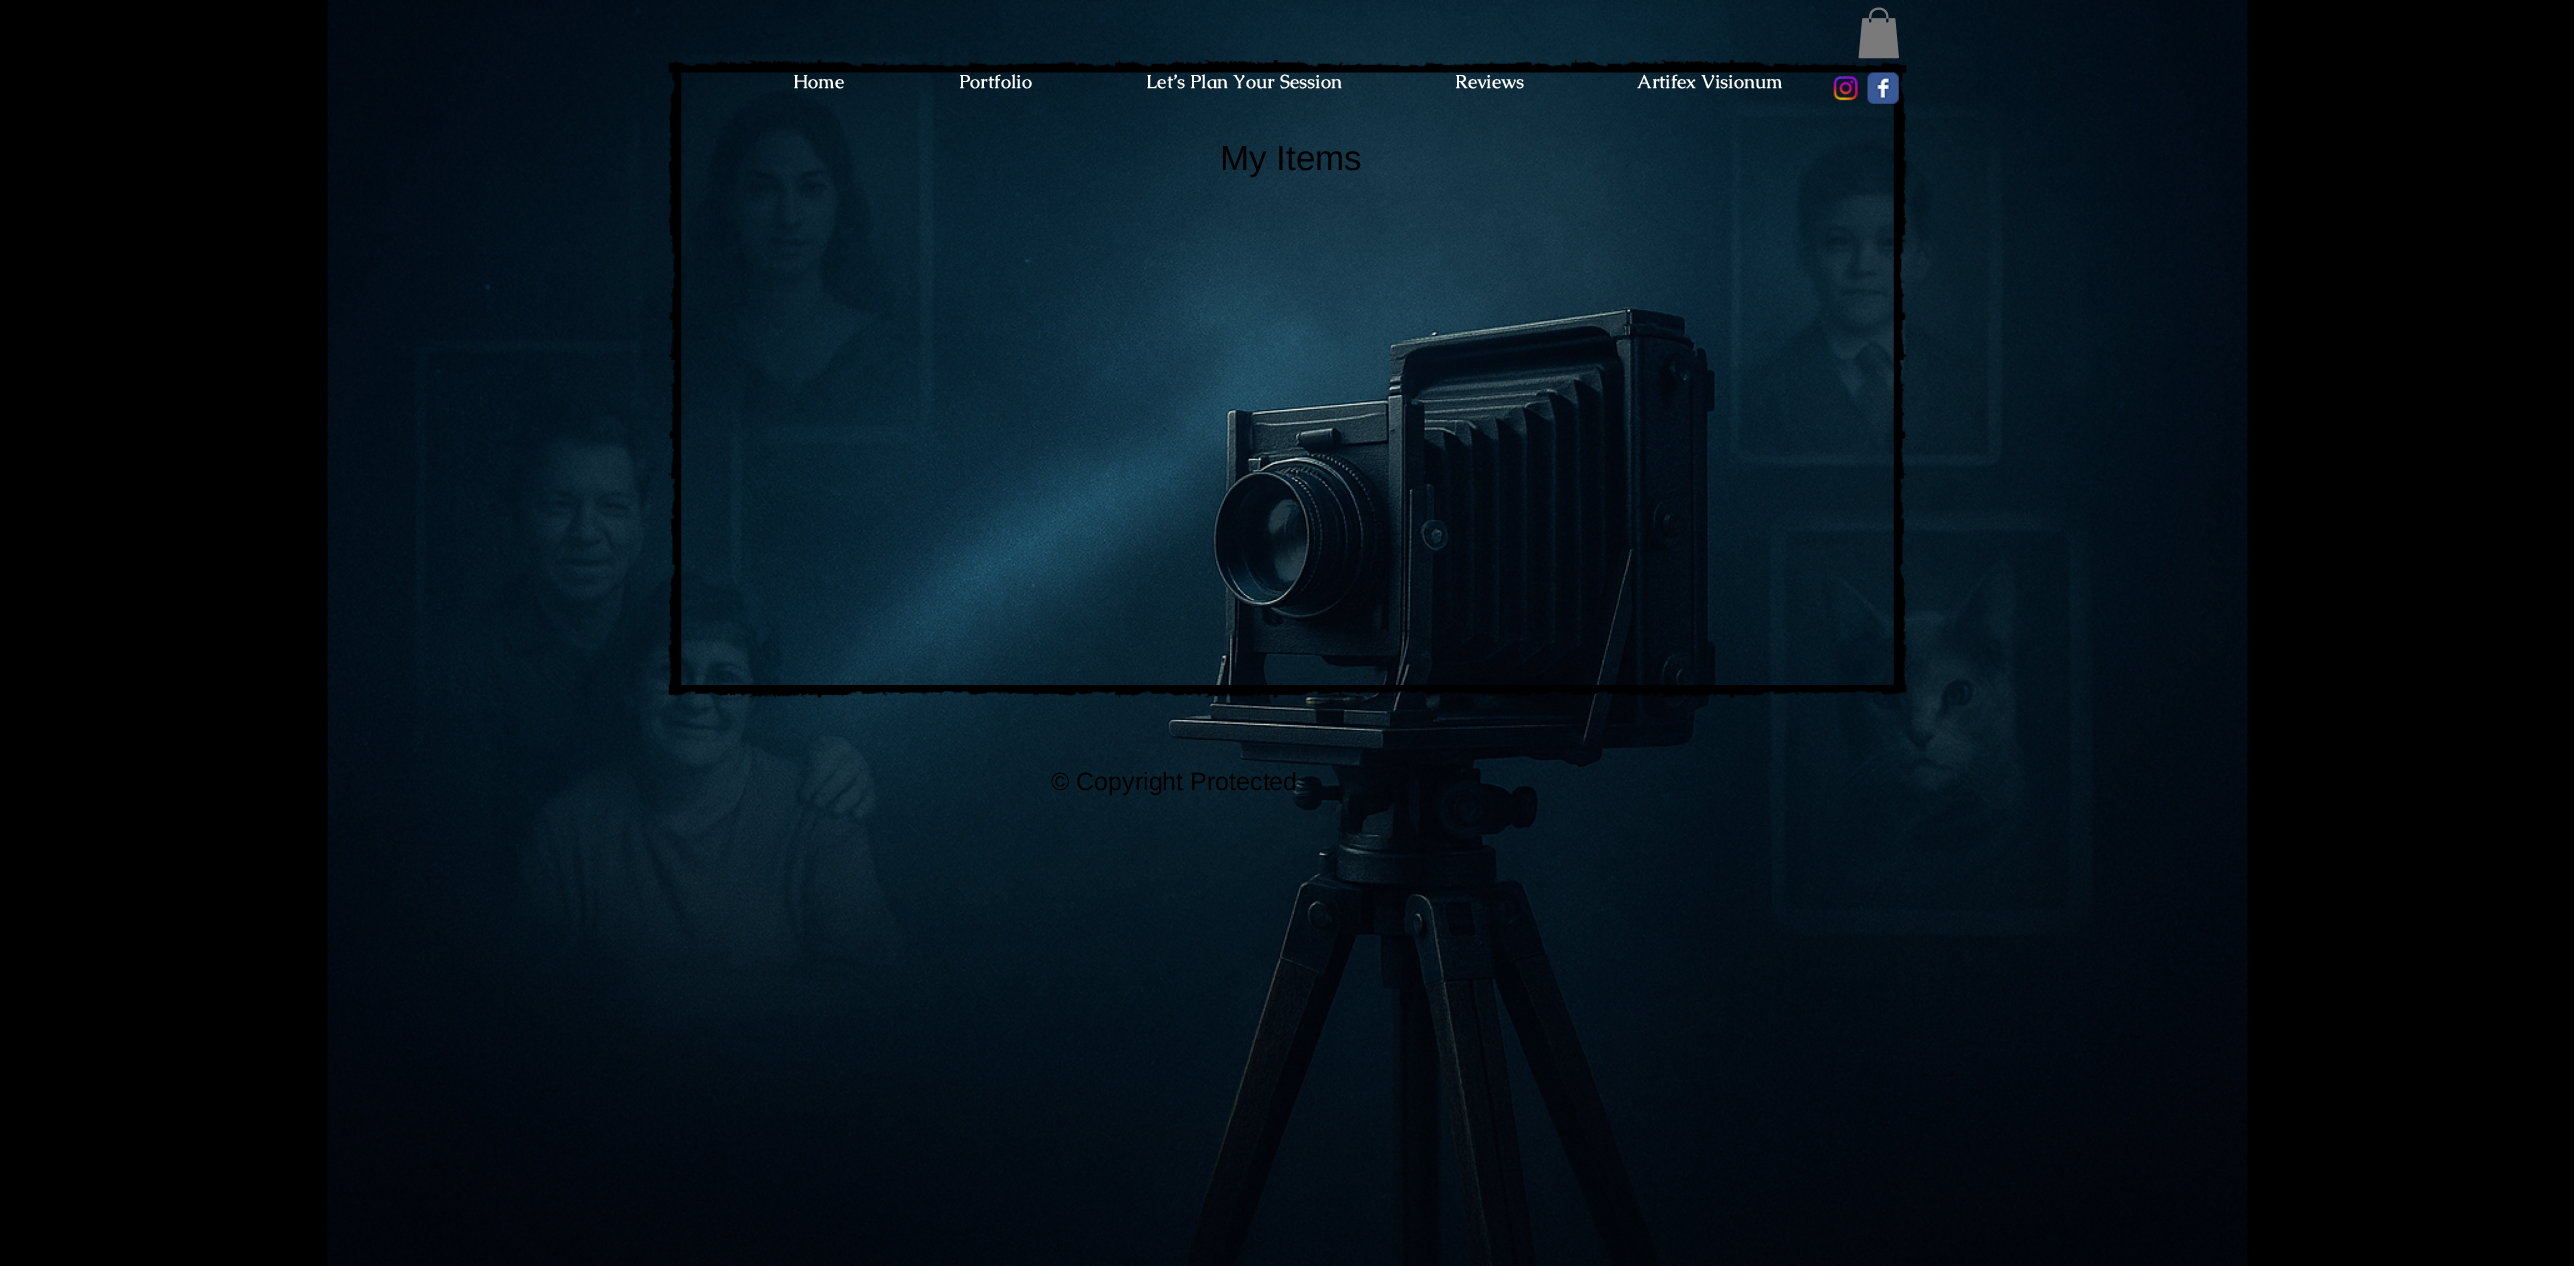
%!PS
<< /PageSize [2574 1266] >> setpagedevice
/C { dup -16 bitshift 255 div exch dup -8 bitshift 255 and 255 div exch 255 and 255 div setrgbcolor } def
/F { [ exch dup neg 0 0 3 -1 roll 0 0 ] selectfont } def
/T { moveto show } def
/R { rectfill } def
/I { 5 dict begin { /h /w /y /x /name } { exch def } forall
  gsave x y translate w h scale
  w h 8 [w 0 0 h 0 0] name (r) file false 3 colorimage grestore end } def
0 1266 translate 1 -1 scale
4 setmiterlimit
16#000000 C
0 0 2574 1266 R
(1.rgb) 327 0 1921 1266 I
(2.rgb) 1858 7 41 52 I
/Caudex-Bold 18.75 F
16#FFFFFF C
(Home) 793 88 T
(Portfolio) 959 88 T
(Let’s Plan Your Session) 1146 88 T
(Reviews) 1455 88 T
(Artifex Visionum) 1637 88 T
(3.rgb) 1833 76 25 25 I
(5.rgb) 668 60 1239 13 I
(6.rgb) 668 685 1239 13 I
(8.rgb) 1893 72 14 614 I
(4.rgb) 1867 72 32 32 I
(7.rgb) 668 72 14 614 I
/LiberationSans-Regular 35 F
16#000000 C
(My Items) 1220 170 T
/LiberationSans-Regular 25 F
(© Copyright Protected) 1051 790 T
showpage
